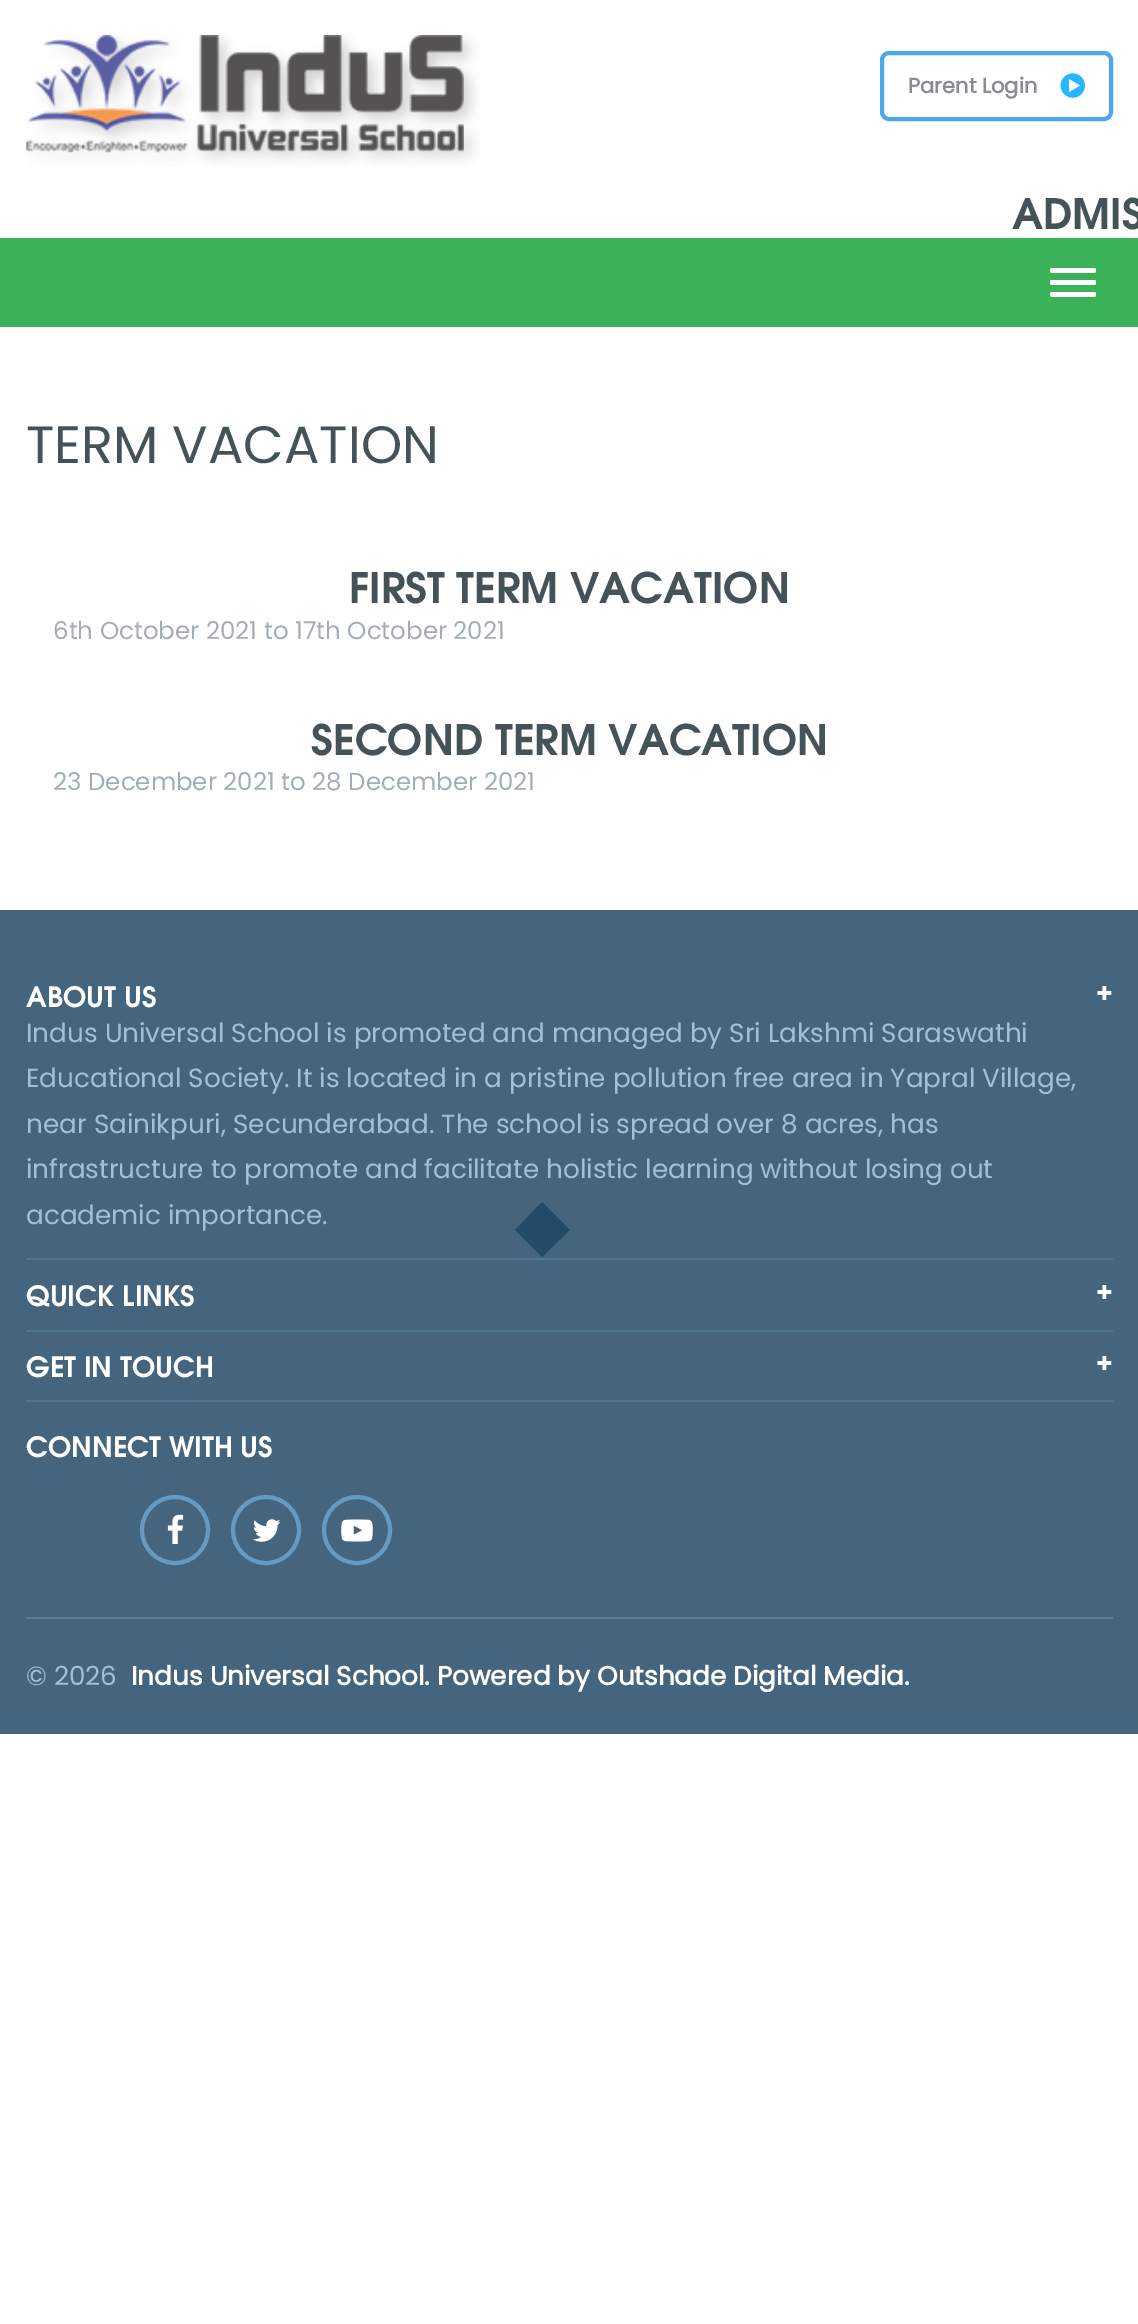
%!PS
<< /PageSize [1138 2324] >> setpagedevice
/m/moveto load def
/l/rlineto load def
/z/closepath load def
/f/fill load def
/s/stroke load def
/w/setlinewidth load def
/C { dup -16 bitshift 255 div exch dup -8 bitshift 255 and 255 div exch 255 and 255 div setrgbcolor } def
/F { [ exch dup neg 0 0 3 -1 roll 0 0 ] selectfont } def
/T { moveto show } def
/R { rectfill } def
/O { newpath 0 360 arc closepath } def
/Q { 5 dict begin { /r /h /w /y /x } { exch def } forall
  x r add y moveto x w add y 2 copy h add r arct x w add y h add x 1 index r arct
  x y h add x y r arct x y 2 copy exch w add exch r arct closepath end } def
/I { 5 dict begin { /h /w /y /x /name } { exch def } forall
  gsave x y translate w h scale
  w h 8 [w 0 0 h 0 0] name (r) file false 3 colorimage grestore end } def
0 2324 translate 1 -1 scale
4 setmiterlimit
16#FFFFFF C
0 0 1138 2324 R
(1.rgb) 26 32 454 135 I
16#4CA7ED C
4 w
882 53 229 66 7 Q s
/Poppins-Bold 21 F
16#858E92 C
(Parent Login) 908 93 T
(2.rgb) 1060 73 25 25 I
/TeXGyreAdventor-Bold 42 F
16#455358 C
(ADMIS) 1012 229 T
16#3AB258 C
0 238 1138 89 R
16#FFFFFF C
1050 268 46 5 2 Q f
1050 280 46 5 2 Q f
1050 292 46 5 2 Q f
/Poppins-Regular 52.5 F
16#455358 C
(TERM VACATION) 26 463 T
/TeXGyreAdventor-Bold 42 F
(FIRST TERM VACATION) 349 603 T
/Poppins-Regular 24.5 F
16#A3AEB4 C
(6th October 2021 to 17th October 2021) 53 639 T
/TeXGyreAdventor-Bold 42 F
16#455358 C
(SECOND TERM VACATION) 311 755 T
/Poppins-Regular 24.5 F
16#A3AEB4 C
(23 December 2021 to 28 December 2021) 53 790 T
16#44657D C
0 910 1138 824 R
16#4D7797 C
26 1258 1087 2 R
/TeXGyreAdventor-Bold 28 F
16#FFFFFF C
(ABOUT US) 26 1007 T
(+) 1096 1000 T
/Poppins-Regular 26.25 F
16#9FC1DC C
(Indus Universal School is promoted and managed by Sri Lakshmi Saraswathi) 26 1042 T
(Educational Society. It is located in a pristine pollution free area in Yapral Village,) 26 1087 T
(near Sainikpuri, Secunderabad. The school is spread over 8 acres, has) 26 1133 T
(infrastructure to promote and facilitate holistic learning without losing out) 26 1178 T
(academic importance.) 26 1224 T
16#4D7797 C
26 1330 1087 2 R
/TeXGyreAdventor-Bold 28 F
16#FFFFFF C
(QUICK LINKS) 26 1306 T
(+) 1096 1299 T
16#4D7797 C
26 1400 1087 2 R
16#FFFFFF C
(GET IN TOUCH) 26 1377 T
(+) 1096 1370 T
(CONNECT WITH US) 26 1457 T
16#6899C0 C
175 1530 33 O s
(3.rgb) 167 1514 17 30 I
266 1530 33 O s
(4.rgb) 253 1519 28 23 I
357 1530 33 O s
(5.rgb) 341 1519 32 23 I
16#5B7C96 C
26 1617 1087 2 R
/Poppins-Regular 26.25 F
16#9FC1DC C
(© 2026) 26 1685 T
/Poppins-Bold 26.25 F
16#FFFFFF C
(Indus Universal School. Powered by Outshade Digital Media.) 131 1685 T
16#234A66 C
515 1230 m 27 27 l 28 -27 l -28 -28 l z f
showpage
